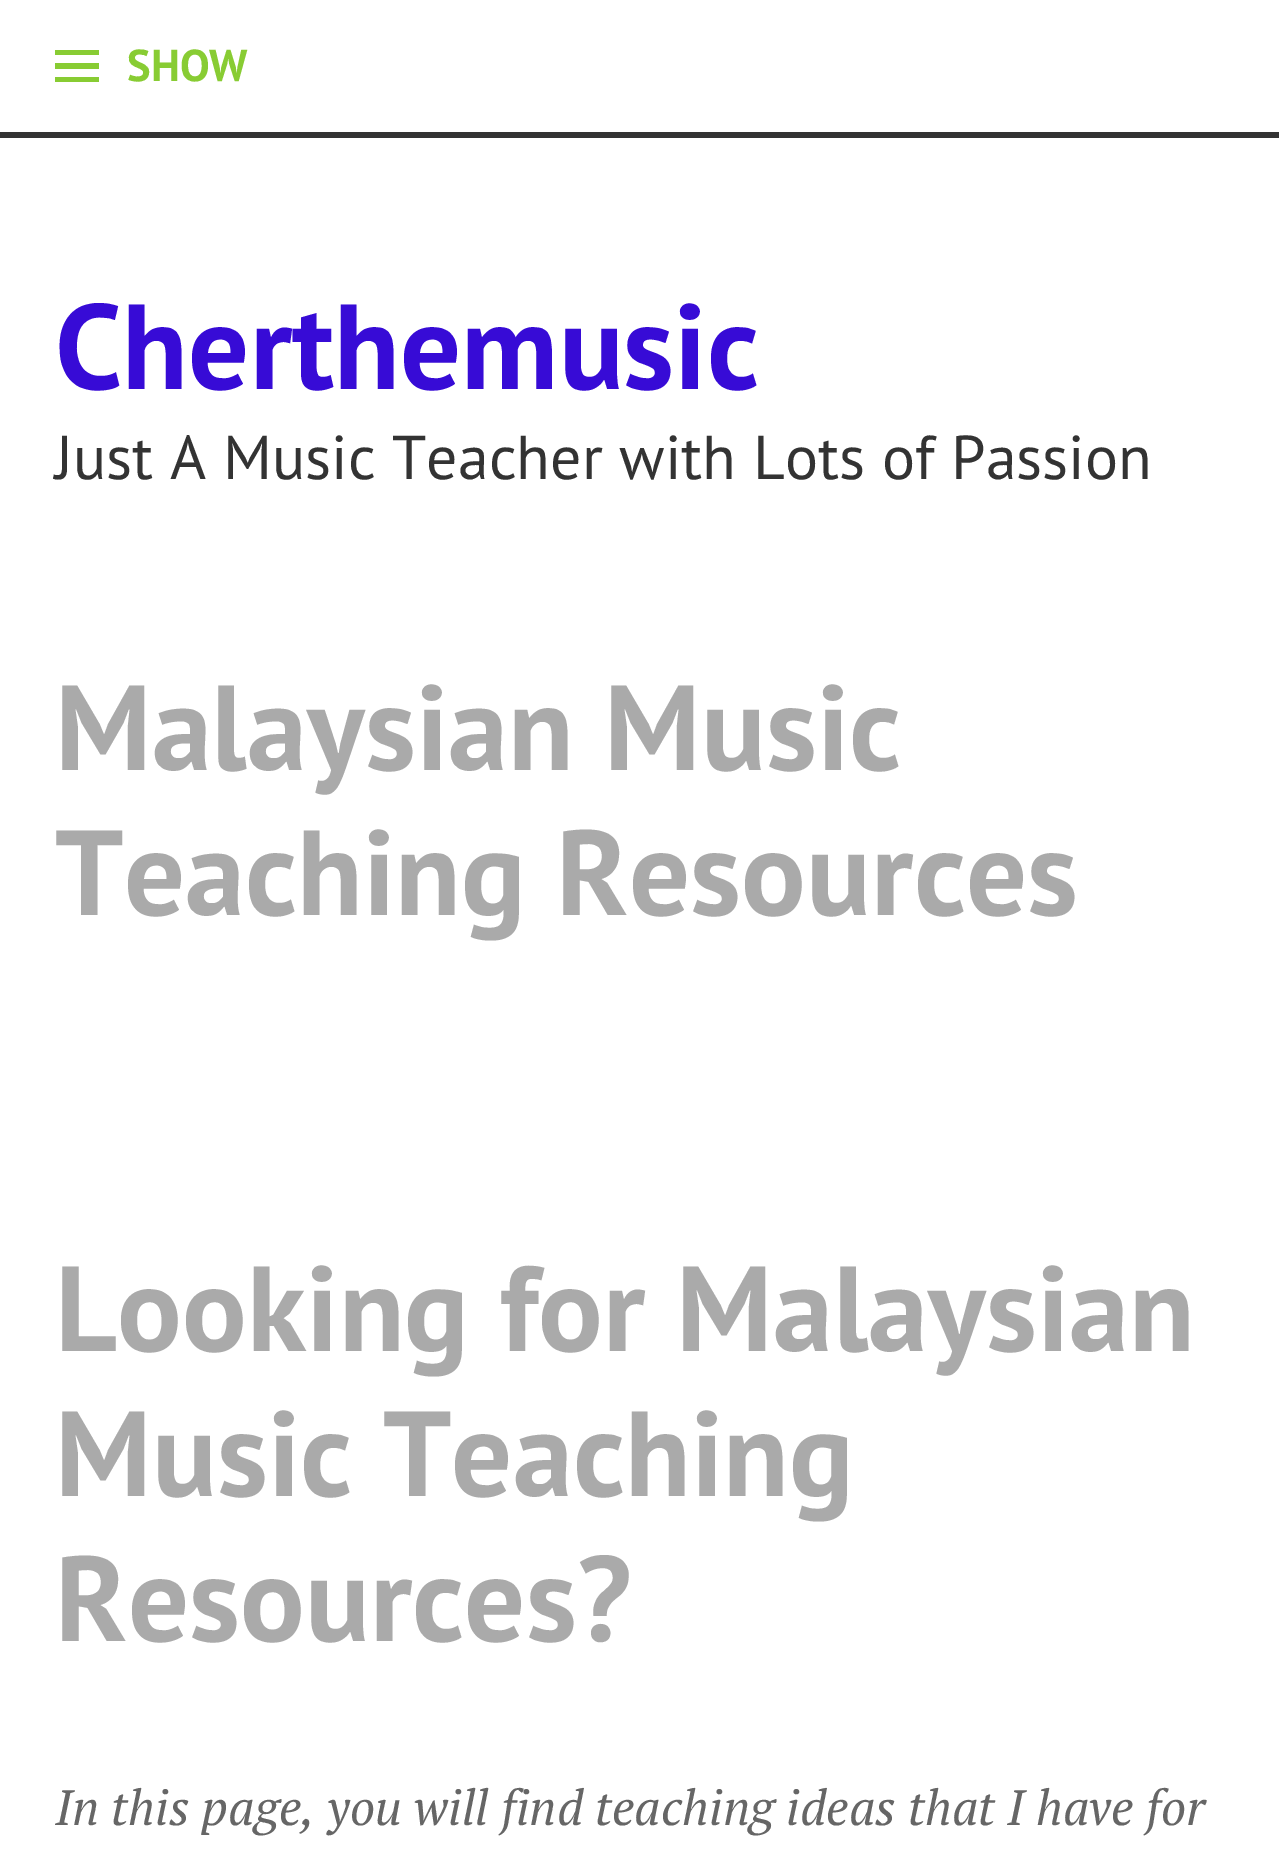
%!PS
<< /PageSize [1279 1873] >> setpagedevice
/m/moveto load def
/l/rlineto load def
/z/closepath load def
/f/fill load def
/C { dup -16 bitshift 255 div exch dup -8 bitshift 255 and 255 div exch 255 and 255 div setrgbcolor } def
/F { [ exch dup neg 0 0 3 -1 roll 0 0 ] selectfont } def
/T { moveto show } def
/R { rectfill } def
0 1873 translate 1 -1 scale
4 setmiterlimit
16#FFFFFF C
0 0 1279 1873 R
16#333333 C
0 132 1279 6 R
16#88CC33 C
55 82 m 0 -5 l 44 0 l 0 5 l z 55 50 m 44 0 l 0 5 l -44 0 l z 55 69 m 0 -6 l 44 0 l 0 6 l z f
/PTSans-Bold 44.5 F
(SHOW) 127 81 T
/PTSans-Bold 120.75 F
16#370BD6 C
(Cherthemusic) 55 389 T
/PTSans-Regular 61.9 F
16#333333 C
(Just A Music Teacher with Lots of Passion) 55 479 T
/PTSans-Bold 120.75 F
16#AAAAAA C
(Malaysian Music) 55 770 T
(Teaching Resources) 55 915 T
(Looking for Malaysian) 55 1351 T
(Music Teaching) 55 1496 T
(Resources?) 55 1641 T
/PTSerif-Italic 49.5 F
16#666666 C
(In this page, you will find teaching ideas that I have for) 55 1825 T
showpage
